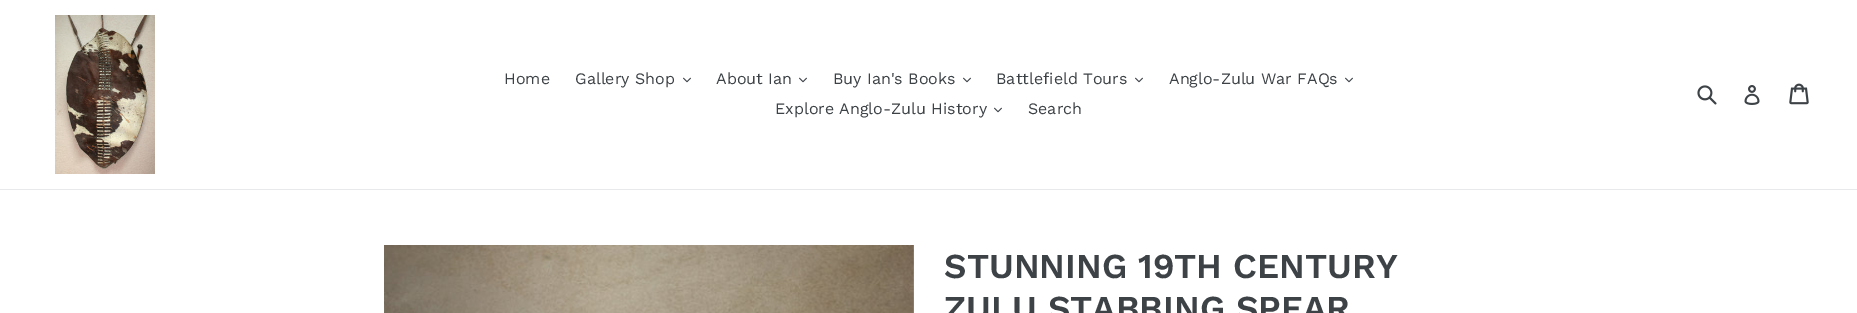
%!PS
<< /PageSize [1857 313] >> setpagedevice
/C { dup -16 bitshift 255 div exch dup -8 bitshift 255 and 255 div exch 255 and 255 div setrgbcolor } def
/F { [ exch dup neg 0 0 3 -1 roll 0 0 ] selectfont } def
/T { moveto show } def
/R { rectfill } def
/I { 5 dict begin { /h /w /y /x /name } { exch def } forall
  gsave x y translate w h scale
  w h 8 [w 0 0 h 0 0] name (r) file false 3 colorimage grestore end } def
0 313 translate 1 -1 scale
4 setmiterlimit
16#FFFFFF C
0 0 1857 313 R
16#E8E9EB C
0 189 1857 1 R
(1.rgb) 55 15 100 159 I
/WorkSans-Regular 16 F
16#3D4246 C
(Home) 504 84 T
(Gallery Shop) 575 84 T
(2.rgb) 683 77 8 6 I
(About Ian) 716 84 T
(2.rgb) 799 77 8 6 I
(Buy Ian's Books) 833 84 T
(2.rgb) 963 77 8 6 I
(Battlefield Tours) 996 84 T
(2.rgb) 1135 77 8 6 I
(Anglo-Zulu War FAQs) 1169 84 T
(2.rgb) 1345 77 8 6 I
(Explore Anglo-Zulu History) 775 114 T
(2.rgb) 994 107 8 6 I
(Search) 1028 114 T
(3.rgb) 1697 85 20 20 I
(4.rgb) 1744 85 16 20 I
(5.rgb) 1789 83 20 22 I
(6.rgb) 384 245 530 68 I
/WorkSans-SemiBold 35 F
(STUNNING 19TH CENTURY) 944 278 T
(ZULU STABBING SPEAR) 944 320 T
showpage
